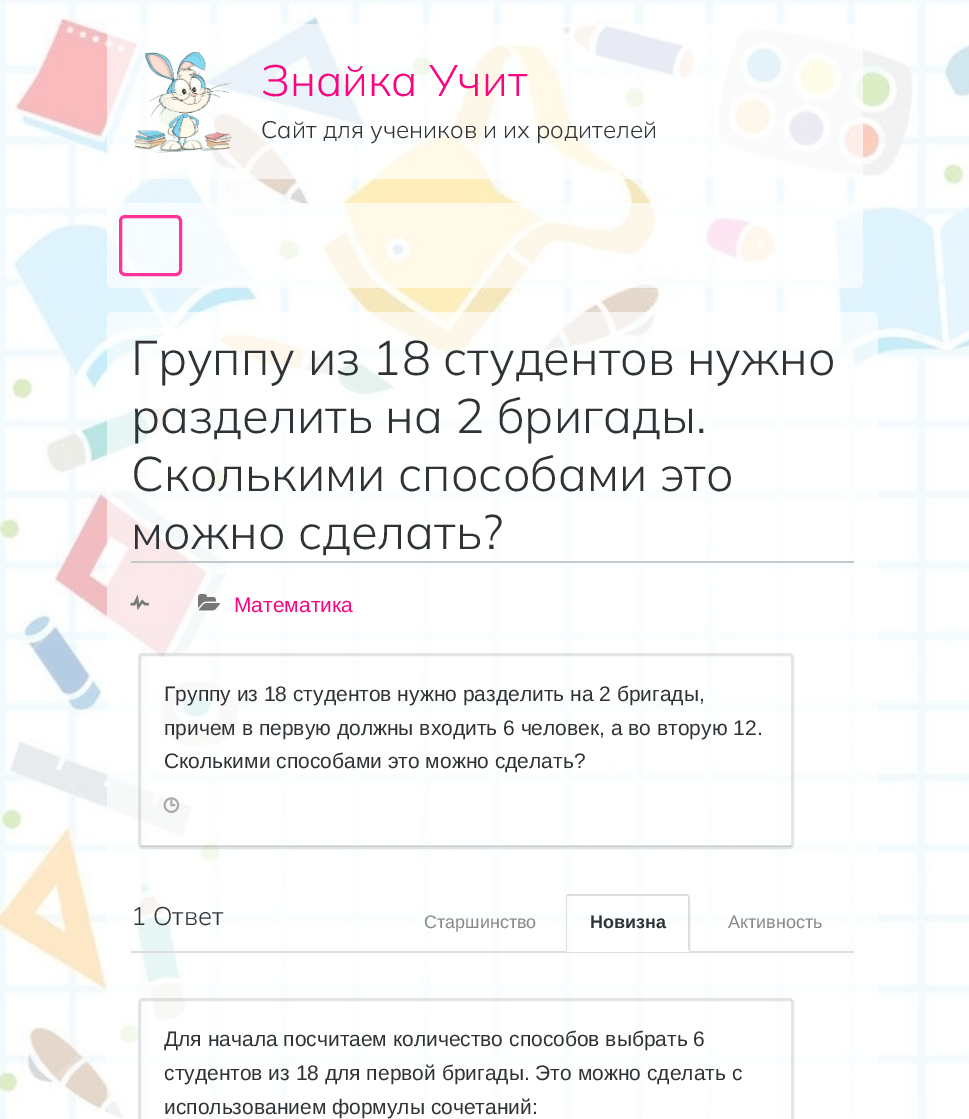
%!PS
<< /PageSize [969 1119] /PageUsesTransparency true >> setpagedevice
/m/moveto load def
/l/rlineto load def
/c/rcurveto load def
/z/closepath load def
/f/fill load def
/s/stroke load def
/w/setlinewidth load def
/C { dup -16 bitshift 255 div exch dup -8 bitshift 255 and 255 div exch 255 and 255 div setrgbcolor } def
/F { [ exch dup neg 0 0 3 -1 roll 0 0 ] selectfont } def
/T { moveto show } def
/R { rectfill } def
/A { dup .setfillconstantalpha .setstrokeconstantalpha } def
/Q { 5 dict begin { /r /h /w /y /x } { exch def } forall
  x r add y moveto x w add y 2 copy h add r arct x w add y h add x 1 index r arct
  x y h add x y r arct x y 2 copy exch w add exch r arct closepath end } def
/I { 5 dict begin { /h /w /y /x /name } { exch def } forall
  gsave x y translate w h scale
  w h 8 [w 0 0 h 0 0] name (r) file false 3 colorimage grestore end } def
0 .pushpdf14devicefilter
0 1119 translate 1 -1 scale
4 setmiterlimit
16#FFFFFF C
0 0 969 1119 R
(1.rgb) 0 0 969 1119 I
0.65 A
107 24 756 155 6 Q f
1 A
(2.rgb) 134 52 98 101 I
/Mulish-Light 44 F
16#FC0380 C
(Знайка Учит) 261 96 T
/Mulish-Light 24 F
16#303336 C
(Сайт для учеников и их родителей) 261 138 T
0.65 A
16#FFFFFF C
107 203 756 85 6 Q f
1 A
16#FF3399 C
3 w
120.5 216.5 60 58 4.5 Q s
0.65 A
16#FFFFFF C
107 312 771 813 6 Q f
1 A
16#C6C9CC C
131 561 723 2 R
/Mulish-Light 48.5 F
16#303336 C
(Группу из 18 студентов нужно) 131 375 T
(разделить на 2 бригады.) 131 433 T
(Сколькими способами это) 131 491 T
(можно сделать?) 131 549 T
(3.rgb) 130 594 19 16 I
(4.rgb) 198 594 22 17 I
/LiberationSans-Regular 21 F
16#FC0380 C
(Математика) 234 612 T
0.1 A
16#000000 C
139.5 654.5 653 193 3.5 Q s
1 A
16#303336 C
(Группу из 18 студентов нужно разделить на 2 бригады,) 164 701 T
(причем в первую должны входить 6 человек, а во вторую 12.) 164 735 T
(Сколькими способами это можно сделать?) 164 768 T
(5.rgb) 163 797 17 16 I
0.1 A
16#000000 C
141 845 650 2 R
1 A
16#DDDDDD C
131 951 723 2 R
/Mulish-Light 25.5 F
16#303336 C
(1 Ответ) 131 925 T
/LiberationSans-Regular 18 F
16#888888 C
(Старшинство) 424 928 T
16#DDDDDD C
568 894 m -2 1 l 2 1 l 120 0 l 1 -1 l -2 -1 l z f
690 952 m 0 -6 1 -55 -1 -57 c -1 1 l 0 54 l z f
16#FFFFFF C
690 952 m -124 0 l 1 -1 l 121 0 l 0 -1 l z f
16#DDDDDD C
566 895 m 0 2 l 0 55 l 1 -1 l 0 -54 l 1 -1 l z f
/LiberationSans-Bold 18 F
16#303336 C
(Новизна) 590 928 T
/LiberationSans-Regular 18 F
16#888888 C
(Активность) 728 928 T
0.1 A
16#000000 C
139.5 999.5 653 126 3.5 Q s
/LiberationSans-Regular 21 F
1 A
16#303336 C
(Для начала посчитаем количество способов выбрать 6) 164 1046 T
(студентов из 18 для первой бригады. Это можно сделать с) 164 1080 T
(использованием формулы сочетаний:) 164 1114 T
.poppdf14devicefilter showpage
